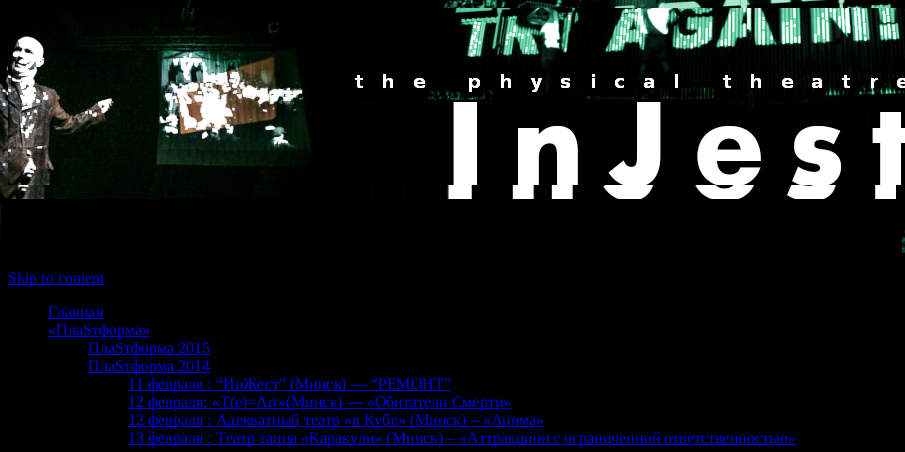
%!PS
<< /PageSize [905 452] >> setpagedevice
/C { dup -16 bitshift 255 div exch dup -8 bitshift 255 and 255 div exch 255 and 255 div setrgbcolor } def
/F { [ exch dup neg 0 0 3 -1 roll 0 0 ] selectfont } def
/T { moveto show } def
/R { rectfill } def
/I { 5 dict begin { /h /w /y /x /name } { exch def } forall
  gsave x y translate w h scale
  w h 8 [w 0 0 h 0 0] name (r) file false 3 colorimage grestore end } def
0 452 translate 1 -1 scale
4 setmiterlimit
16#000000 C
0 0 905 452 R
(1.rgb) 0 0 905 253 I
(2.rgb) 8 8 897 177 I
16#0000EE C
8 284 97 1 R
/LiberationSerif-Regular 16 F
(Skip to content) 8 283 T
(Главная) 48 317 T
48 318 55 1 R
48 336 102 1 R
(«ПлаSтформа») 48 335 T
88 354 122 1 R
(ПлаSтформа 2015) 88 353 T
88 372 122 1 R
(ПлаSтформа 2014) 88 371 T
128 390 323 1 R
(11 февраля : “ИнЖест” \(Минск\) — “РЕМОНТ”) 128 389 T
128 408 383 1 R
(12 февраля: «T\(e\)=Art»\(Минск\) — «Обитатели Смерти») 128 407 T
128 426 416 1 R
(12 февраля : Адекватный театр «в Кубе» \(Минск\) – «Анима») 128 425 T
128 444 668 1 R
(13 февраля : Театр танца «Каракули» \(Минск\) – «Аттракцион с ограниченной ответственностью») 128 443 T
showpage
